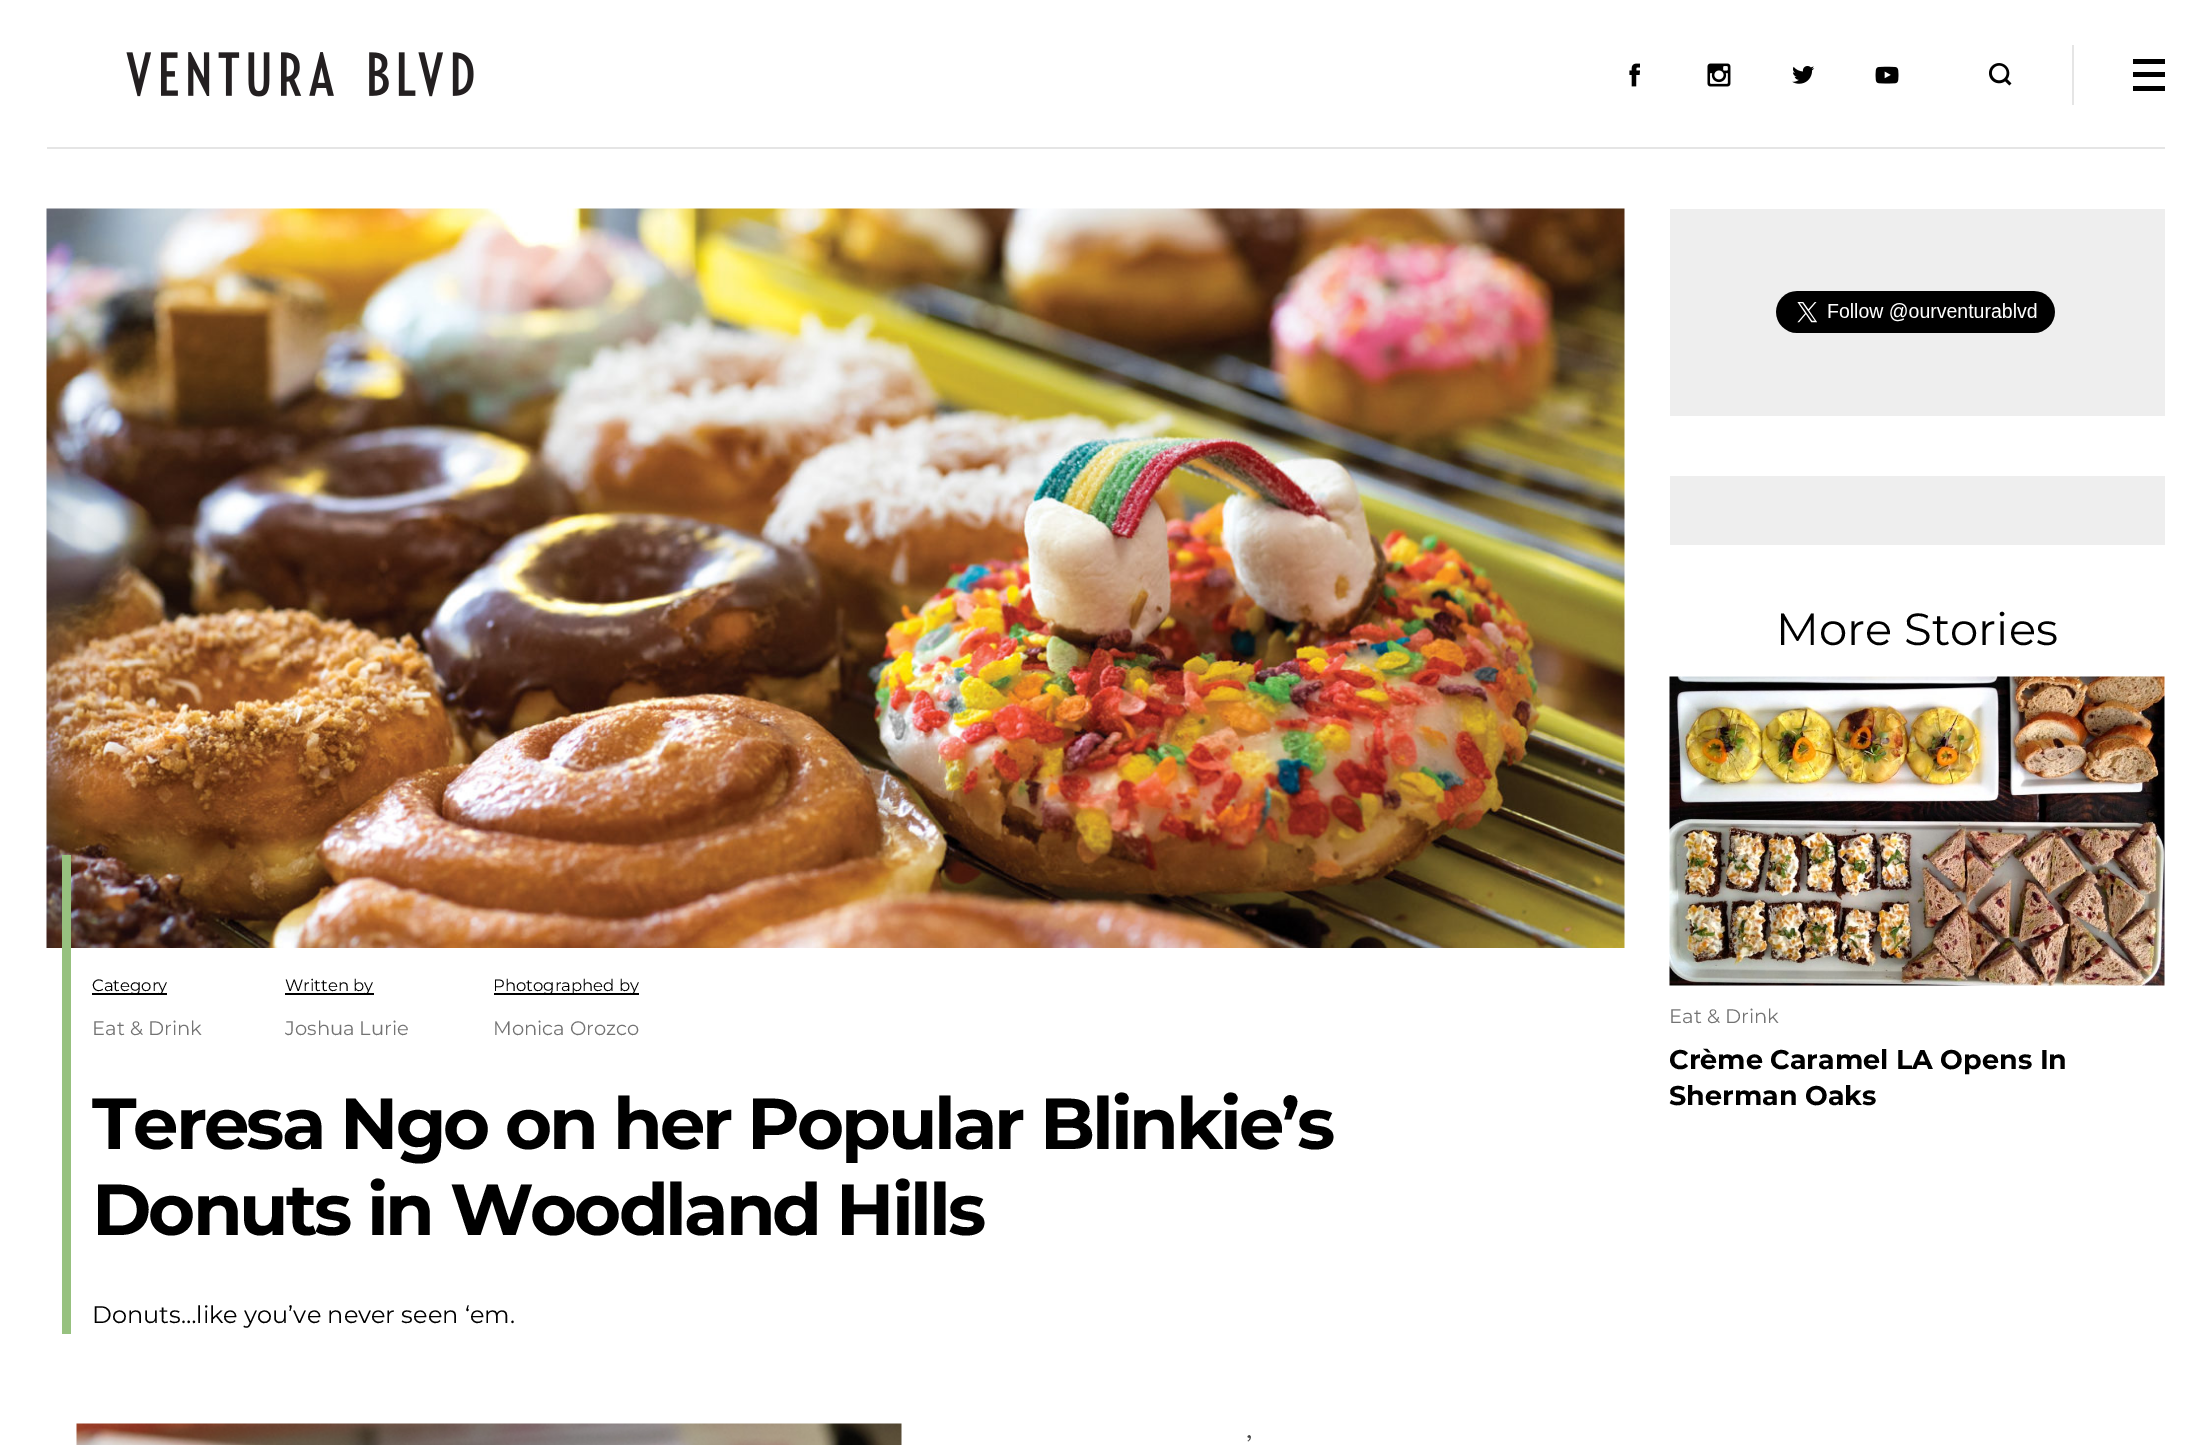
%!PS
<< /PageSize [2211 1445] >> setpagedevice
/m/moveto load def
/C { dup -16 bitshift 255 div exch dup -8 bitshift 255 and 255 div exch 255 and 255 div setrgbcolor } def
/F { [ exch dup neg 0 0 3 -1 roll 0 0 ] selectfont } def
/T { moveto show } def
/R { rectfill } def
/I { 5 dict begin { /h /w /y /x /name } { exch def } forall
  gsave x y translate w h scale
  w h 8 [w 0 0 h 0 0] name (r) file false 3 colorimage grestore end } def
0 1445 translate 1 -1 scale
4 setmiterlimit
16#FFFFFF C
0 0 2211 1445 R
(1.rgb) 126 52 348 45 I
(2.rgb) 1629 63 11 24 I
(3.rgb) 1707 63 24 24 I
(4.rgb) 1792 66 23 18 I
(5.rgb) 1875 66 24 18 I
16#E5E5E5 C
2072 45 2 60 R
(6.rgb) 1989 63 23 23 I
16#000000 C
2133 59 32 5 R
2133 72 32 5 R
2133 86 32 5 R
16#E5E5E5 C
47 147 2118 2 R
16#EEEEEE C
1670 209 495 207 R
(7.rgb) 1776 291 279 42 I
1670 476 495 69 R
/Montserrat-Regular 45 F
16#000000 C
(More Stories) 1776 645 T
(8.rgb) 1669 676 496 310 I
/Montserrat-Regular 19.5 F
16#737373 C
(Eat & Drink) 1669 1023 T
/Montserrat-Bold 27 F
16#000000 C
(Crème Caramel LA Opens In) 1669 1069 T
(Sherman Oaks) 1669 1105 T
(9.rgb) 46 208 1579 740 I
16#97C17F C
62 855 9 479 R
16#000000 C
92 993 75 2 R
/Montserrat-Regular 16.5 F
(Category) 92 991 T
/Montserrat-Regular 19.5 F
16#737373 C
(Eat & Drink) 92 1035 T
16#000000 C
285 993 89 2 R
/Montserrat-Regular 16.5 F
(Written by) 285 991 T
/Montserrat-Regular 19.5 F
16#737373 C
(Joshua Lurie) 285 1035 T
16#000000 C
494 993 145 2 R
/Montserrat-Regular 16.5 F
(Photographed by) 493 991 T
/Montserrat-Regular 19.5 F
16#737373 C
(Monica Orozco) 493 1035 T
/Montserrat-Bold 72 F
16#000000 C
92 1149 m -3 0 (Teresa Ngo on her Popular Blinkie’s) ashow
92 1235 m -3 0 (Donuts in Woodland Hills) ashow
/Montserrat-Regular 24 F
(Donuts…like you’ve never seen ‘em.) 92 1323 T
(10.rgb) 76 1423 826 22 I
/LibreBaskerville-Regular 24 F
16#424242 C
(’) 1246 1455 T
showpage
